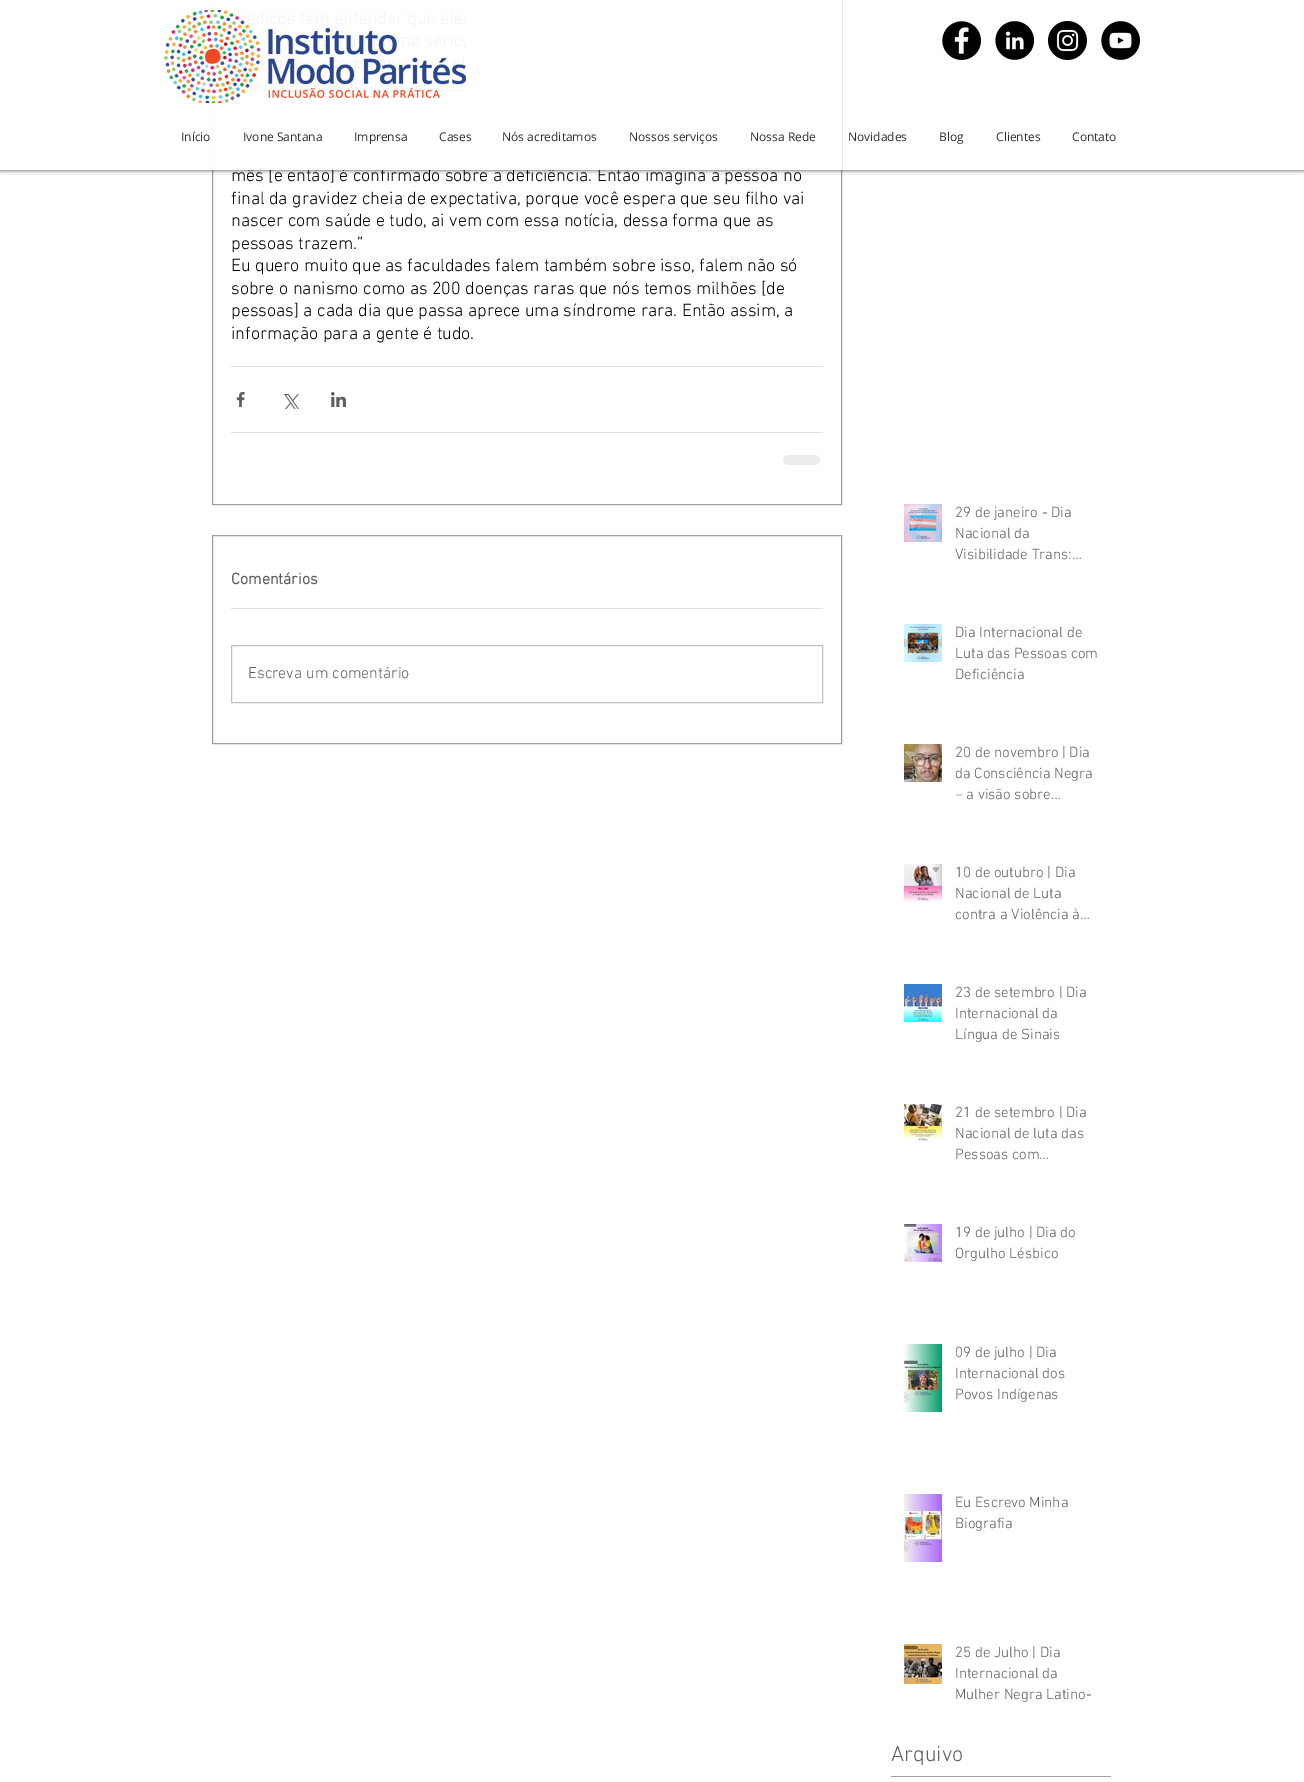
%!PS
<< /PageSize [1304 1782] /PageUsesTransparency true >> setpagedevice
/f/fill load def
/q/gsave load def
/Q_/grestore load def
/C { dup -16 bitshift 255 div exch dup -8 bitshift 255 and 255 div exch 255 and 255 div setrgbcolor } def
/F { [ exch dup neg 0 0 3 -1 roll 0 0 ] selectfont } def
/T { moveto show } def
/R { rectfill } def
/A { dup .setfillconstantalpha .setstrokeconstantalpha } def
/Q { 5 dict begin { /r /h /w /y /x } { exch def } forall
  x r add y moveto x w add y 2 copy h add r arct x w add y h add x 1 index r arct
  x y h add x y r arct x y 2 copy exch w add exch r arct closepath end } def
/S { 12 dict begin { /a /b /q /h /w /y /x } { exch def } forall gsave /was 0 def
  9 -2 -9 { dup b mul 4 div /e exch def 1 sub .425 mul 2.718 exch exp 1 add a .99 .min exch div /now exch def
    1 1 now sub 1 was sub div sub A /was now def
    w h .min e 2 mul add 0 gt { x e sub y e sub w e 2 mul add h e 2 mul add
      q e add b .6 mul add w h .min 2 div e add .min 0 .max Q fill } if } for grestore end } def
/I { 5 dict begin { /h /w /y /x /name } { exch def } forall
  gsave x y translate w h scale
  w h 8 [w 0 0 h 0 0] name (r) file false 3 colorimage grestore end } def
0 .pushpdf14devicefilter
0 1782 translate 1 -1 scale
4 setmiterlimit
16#FFFFFF C
0 0 1304 1782 R
16#A0A09F C
212.5 -.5 629 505 rectstroke
q
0 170 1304 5 rectclip
16#000000 C
0 0 1304 170 0 2.5 .7 S
Q_
/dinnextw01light-Light 18 F
16#000000 C
(mês [e então] é confirmado sobre a deficiência. Então imagina a pessoa no) 231 181 T
0.95 A
16#FFFFFF C
212 0 630 170 R
1 A
(1.rgb) 164 10 302 93 I
(2.rgb) 942 21 39 39 I
(3.rgb) 995 21 39 39 I
(4.rgb) 1048 21 39 39 I
(5.rgb) 1101 21 39 39 I
/OpenSans-Regular 12 F
16#2F2E2E C
(Início) 181 141 T
(Ivone Santana) 243 141 T
(Imprensa) 354 141 T
(Cases) 439 141 T
(Nós acreditamos) 502 141 T
(Nossos serviços) 629 141 T
(Nossa Rede) 750 141 T
(Novidades) 848 141 T
(Blog) 939 141 T
(Clientes) 996 141 T
(Contato) 1072 141 T
/dinnextw01light-Light 18 F
16#000000 C
(final da gravidez cheia de expectativa, porque você espera que seu filho vai) 231 204 T
(nascer com saúde e tudo, ai vem com essa notícia, dessa forma que as) 231 226 T
(pessoas trazem.”) 231 249 T
(Eu quero muito que as faculdades falem também sobre isso, falem não só) 231 271 T
(sobre o nanismo como as 200 doenças raras que nós temos milhões [de) 231 294 T
(pessoas] a cada dia que passa aprece uma síndrome rara. Então assim, a) 231 316 T
(informação para a gente é tudo.) 231 339 T
16#DFDFDF C
231 366 592 1 R
(6.rgb) 236 392 9 15 I
(7.rgb) 284 394 15 15 I
(8.rgb) 331 392 15 15 I
231 432 592 1 R
16#ECECEC C
783 455 37 10 5 Q f
16#A0A09F C
212.5 535.5 629 208 rectstroke
/dinnextw01light-Bold 16 F
16#605E5E C
(Comentários) 231 584 T
16#DFDFDF C
231 608 592 1 R
16#C1C0C0 C
231.5 645.5 591 57 rectstroke
/dinnextw01light-Light 16 F
16#605E5E C
(Escreva um comentário) 248 678 T
(9.rgb) 904 504 38 38 I
/dinnextw01light-Light 15 F
(29 de janeiro - Dia) 955 517 T
(Nacional da) 955 538 T
(Visibilidade Trans:…) 955 559 T
(10.rgb) 904 624 38 38 I
(Dia Internacional de) 955 637 T
(Luta das Pessoas com) 955 658 T
(Deficiência) 955 679 T
(11.rgb) 904 744 38 38 I
(20 de novembro | Dia) 955 757 T
(da Consciência Negra) 955 778 T
(– a visão sobre…) 955 799 T
(12.rgb) 904 864 38 38 I
(10 de outubro | Dia) 955 877 T
(Nacional de Luta) 955 898 T
(contra a Violência à…) 955 919 T
(13.rgb) 904 984 38 38 I
(23 de setembro | Dia) 955 997 T
(Internacional da) 955 1018 T
(Língua de Sinais) 955 1039 T
(14.rgb) 904 1104 38 38 I
(21 de setembro | Dia) 955 1117 T
(Nacional de luta das) 955 1138 T
(Pessoas com…) 955 1159 T
(15.rgb) 904 1224 38 38 I
(19 de julho | Dia do) 955 1237 T
(Orgulho Lésbico) 955 1258 T
(16.rgb) 904 1344 38 68 I
(09 de julho | Dia) 955 1357 T
(Internacional dos) 955 1378 T
(Povos Indígenas) 955 1399 T
(17.rgb) 904 1494 38 68 I
(Eu Escrevo Minha) 955 1507 T
(Biografia) 955 1528 T
(18.rgb) 904 1644 38 40 I
(25 de Julho | Dia) 955 1657 T
(Internacional da) 955 1678 T
(Mulher Negra Latino-) 955 1699 T
/dinnextw01light-Light 22 F
(Arquivo) 891 1761 T
16#A0A09F C
891 1776 220 1 R
.poppdf14devicefilter showpage
